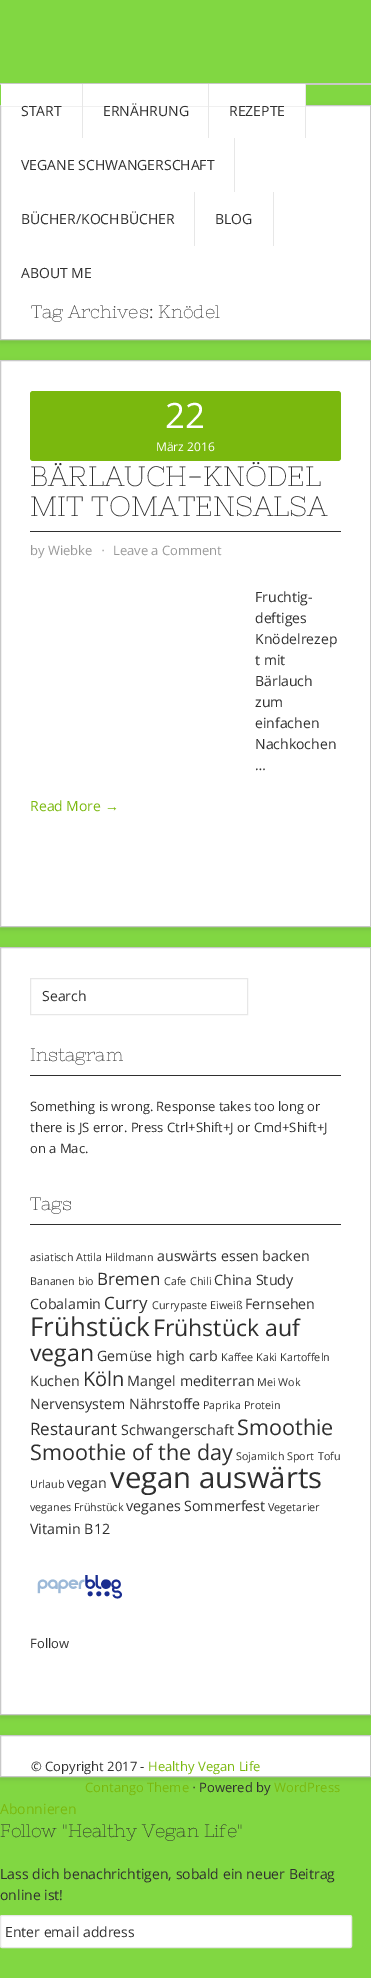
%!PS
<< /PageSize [371 1978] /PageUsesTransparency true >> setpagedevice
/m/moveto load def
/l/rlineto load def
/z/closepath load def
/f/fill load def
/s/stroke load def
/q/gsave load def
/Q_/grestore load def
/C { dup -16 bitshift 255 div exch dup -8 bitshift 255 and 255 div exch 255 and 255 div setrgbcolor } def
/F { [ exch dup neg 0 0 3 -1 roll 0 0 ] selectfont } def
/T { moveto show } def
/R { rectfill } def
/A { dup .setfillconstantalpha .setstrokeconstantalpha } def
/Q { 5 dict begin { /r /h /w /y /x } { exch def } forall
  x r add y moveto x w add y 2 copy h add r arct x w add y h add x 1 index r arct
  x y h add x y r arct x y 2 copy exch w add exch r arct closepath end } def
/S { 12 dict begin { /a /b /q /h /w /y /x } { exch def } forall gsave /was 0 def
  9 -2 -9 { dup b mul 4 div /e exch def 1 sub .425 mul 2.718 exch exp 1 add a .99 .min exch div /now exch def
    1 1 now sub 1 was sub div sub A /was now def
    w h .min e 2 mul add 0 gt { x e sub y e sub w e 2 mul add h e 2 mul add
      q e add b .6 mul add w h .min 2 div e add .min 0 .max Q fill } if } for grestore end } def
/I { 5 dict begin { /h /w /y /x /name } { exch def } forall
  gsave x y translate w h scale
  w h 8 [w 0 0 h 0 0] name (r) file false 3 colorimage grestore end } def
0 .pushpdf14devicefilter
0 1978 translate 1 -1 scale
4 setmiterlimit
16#81D742 C
0 0 371 1978 R
16#C8C8C8 C
0 83 371 2 R
16#323232 C
0 107 371 235 0 2.5 .15 S
16#FFFFFF C
.5 105.5 m 370 0 l 0 234 l -370 0 l z q f Q_
16#C8C8C8 C
s
16#FFFFFF C
1 84 81 22 R
16#E7E7E7 C
82 84 1 54 R
/OpenSans-Regular 14 F
16#2F2F2F C
(START) 21 116 T
16#FFFFFF C
83 84 125 22 R
16#E7E7E7 C
208 84 1 54 R
16#2F2F2F C
(ERNÄHRUNG) 103 116 T
16#FFFFFF C
209 84 96 22 R
16#E7E7E7 C
305 84 1 54 R
16#2F2F2F C
(REZEPTE) 229 116 T
16#E7E7E7 C
234 138 1 54 R
16#2F2F2F C
(VEGANE SCHWANGERSCHAFT) 21 170 T
16#E7E7E7 C
194 192 1 54 R
16#2F2F2F C
(BÜCHER/KOCHBÜCHER) 21 224 T
16#E7E7E7 C
273 192 1 54 R
16#2F2F2F C
(BLOG) 215 224 T
(ABOUT ME) 21 278 T
/NixieOne-Regular 18 F
(Tag Archives: Knödel) 31 318 T
16#323232 C
0 362 371 567 0 2.5 .15 S
16#FFFFFF C
.5 360.5 m 370 0 l 0 566 l -370 0 l z q f Q_
16#C8C8C8 C
s
16#7AB80E C
30 391 311 70 3 Q f
/OpenSans-Regular 35 F
16#FFFFFF C
(22) 165 428 T
/OpenSans-Regular 12 F
(März 2016) 156 451 T
16#2F2F2F C
30 531 311 1 R
/NixieOne-Regular 28 F
(BÄRLAUCH-KNÖDEL) 30 486 T
(MIT TOMATENSALSA) 30 516 T
/OpenSans-Regular 13 F
16#999999 C
(by Wiebke) 30 555 T
/DejaVuSans-Regular 13 F
(⋅) 101 555 T
/OpenSans-Regular 13 F
(Leave a Comment) 113 555 T
/OpenSans-Regular 14 F
16#2F2F2F C
(Fruchtig-) 255 602 T
(deftiges) 255 623 T
(Knödelrezep) 255 644 T
(t mit) 255 665 T
(Bärlauch) 255 686 T
(zum) 255 707 T
(einfachen) 255 728 T
(Nachkochen) 255 749 T
(…) 255 770 T
16#7AB80E C
(Read More) 30 811 T
/LiberationSans-Regular 14 F
(→) 105 811 T
16#323232 C
0 949 371 768 0 2.5 .15 S
16#FFFFFF C
.5 947.5 m 370 0 l 0 767 l -370 0 l z q f Q_
16#C8C8C8 C
s
16#E7E7E7 C
30.5 978.5 217 36 rectstroke
/OpenSans-Regular 14 F
16#2F2F2F C
(Search) 42 1001 T
30 1075 311 1 R
/NixieOne-Regular 18 F
(Instagram) 30 1061 T
/OpenSans-Regular 13 F
(Something is wrong. Response takes too long or) 30 1111 T
(there is JS error. Press Ctrl+Shift+J or Cmd+Shift+J) 30 1132 T
(on a Mac.) 30 1153 T
30 1224 311 1 R
/NixieOne-Regular 18 F
(Tags) 30 1210 T
/OpenSans-Regular 10.75 F
(asiatisch) 30 1261 T
(Attila Hildmann) 76 1261 T
/OpenSans-Regular 14.25 F
(auswärts essen) 157 1261 T
(backen) 262 1261 T
/OpenSans-Regular 10.75 F
(Bananen) 30 1285 T
(bio) 78 1285 T
/OpenSans-Regular 17 F
(Bremen) 97 1285 T
/OpenSans-Regular 10.75 F
(Cafe) 164 1285 T
(Chili) 190 1285 T
/OpenSans-Regular 14.25 F
(China Study) 214 1285 T
(Cobalamin) 30 1309 T
/OpenSans-Regular 17 F
(Curry) 104 1309 T
/OpenSans-Regular 10.75 F
(Currypaste) 152 1309 T
(Eiweiß) 210 1309 T
/OpenSans-Regular 14.25 F
(Fernsehen) 245 1309 T
/OpenSans-Regular 26 F
(Frühstück) 30 1336 T
/OpenSans-Regular 23 F
(Frühstück auf) 153 1336 T
(vegan) 30 1361 T
/OpenSans-Regular 14.25 F
(Gemüse) 97 1361 T
(high carb) 156 1361 T
/OpenSans-Regular 10.75 F
(Kaffee) 221 1361 T
(Kaki) 256 1361 T
(Kartoffeln) 280 1361 T
/OpenSans-Regular 14.25 F
(Kuchen) 30 1386 T
/OpenSans-Regular 20 F
(Köln) 83 1386 T
/OpenSans-Regular 14.25 F
(Mangel mediterran) 127 1386 T
/OpenSans-Regular 10.75 F
(Mei Wok) 257 1386 T
/OpenSans-Regular 14.25 F
(Nervensystem) 30 1409 T
(Nährstoffe) 129 1409 T
/OpenSans-Regular 10.75 F
(Paprika) 203 1409 T
(Protein) 244 1409 T
/OpenSans-Regular 17 F
(Restaurant) 30 1435 T
/OpenSans-Regular 14.25 F
(Schwangerschaft) 121 1435 T
/OpenSans-Regular 21.6 F
(Smoothie) 237 1435 T
(Smoothie of the day) 30 1460 T
/OpenSans-Regular 10.75 F
(Sojamilch) 236 1460 T
(Sport) 287 1460 T
(Tofu) 318 1460 T
(Urlaub) 30 1488 T
/OpenSans-Regular 14.25 F
(vegan) 67 1488 T
/OpenSans-Regular 29.25 F
(vegan auswärts) 110 1488 T
/OpenSans-Regular 10.75 F
(veganes Frühstück) 30 1511 T
/OpenSans-Regular 14.25 F
(veganes Sommerfest) 126 1511 T
/OpenSans-Regular 10.75 F
(Vegetarier) 268 1511 T
/OpenSans-Regular 14.25 F
(Vitamin B12) 30 1534 T
(1.rgb) 37 1575 86 24 I
/OpenSans-Regular 13 F
(Follow) 30 1648 T
16#323232 C
0 1737 371 42 0 2.5 .15 S
16#FFFFFF C
.5 1735.5 m 370 0 l 0 41 l -370 0 l z q f Q_
16#C8C8C8 C
s
16#2F2F2F C
(© Copyright 2017 -) 31 1771 T
16#7AB80E C
(Healthy Vegan Life) 148 1771 T
(Contango Theme) 85 1792 T
/DejaVuSans-Regular 13 F
16#2F2F2F C
(⋅) 192 1792 T
/OpenSans-Regular 13 F
(Powered by) 199 1792 T
16#7AB80E C
(WordPress) 274 1792 T
/OpenSans-Regular 14 F
(Abonnieren) 0 1814 T
/NixieOne-Regular 18 F
16#2F2F2F C
(Follow "Healthy Vegan Life") 0 1837 T
/OpenSans-Regular 14 F
(Lass dich benachrichtigen, sobald ein neuer Beitrag) 0 1879 T
(online ist!) 0 1900 T
16#FFFFFF C
.5 1915.5 351 32 1.5 Q q f Q_
16#E7E7E7 C
s
16#2F2F2F C
(Enter email address) 5 1937 T
.poppdf14devicefilter showpage
